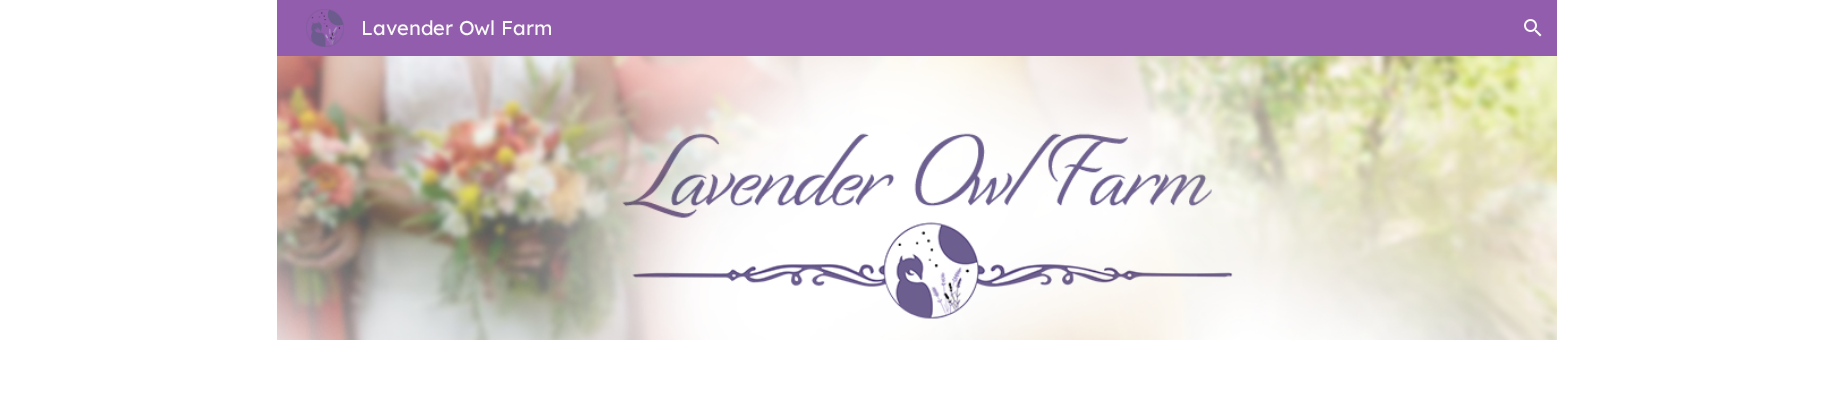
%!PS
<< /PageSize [1833 394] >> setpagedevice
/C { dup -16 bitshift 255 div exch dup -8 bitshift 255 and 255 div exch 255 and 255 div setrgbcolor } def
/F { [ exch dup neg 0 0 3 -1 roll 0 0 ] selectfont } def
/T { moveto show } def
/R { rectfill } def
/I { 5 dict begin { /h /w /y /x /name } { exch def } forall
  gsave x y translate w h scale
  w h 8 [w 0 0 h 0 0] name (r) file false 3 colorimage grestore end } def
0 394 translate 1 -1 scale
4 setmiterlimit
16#FFFFFF C
0 0 1833 394 R
16#925DAC C
277 0 1280 56 R
(1.rgb) 306 9 38 38 I
/Lexend-Regular 20 F
16#F9F9F9 C
(Lavender Owl Farm) 361 35 T
(2.rgb) 1524 19 18 18 I
(3.rgb) 277 56 1280 284 I
showpage
